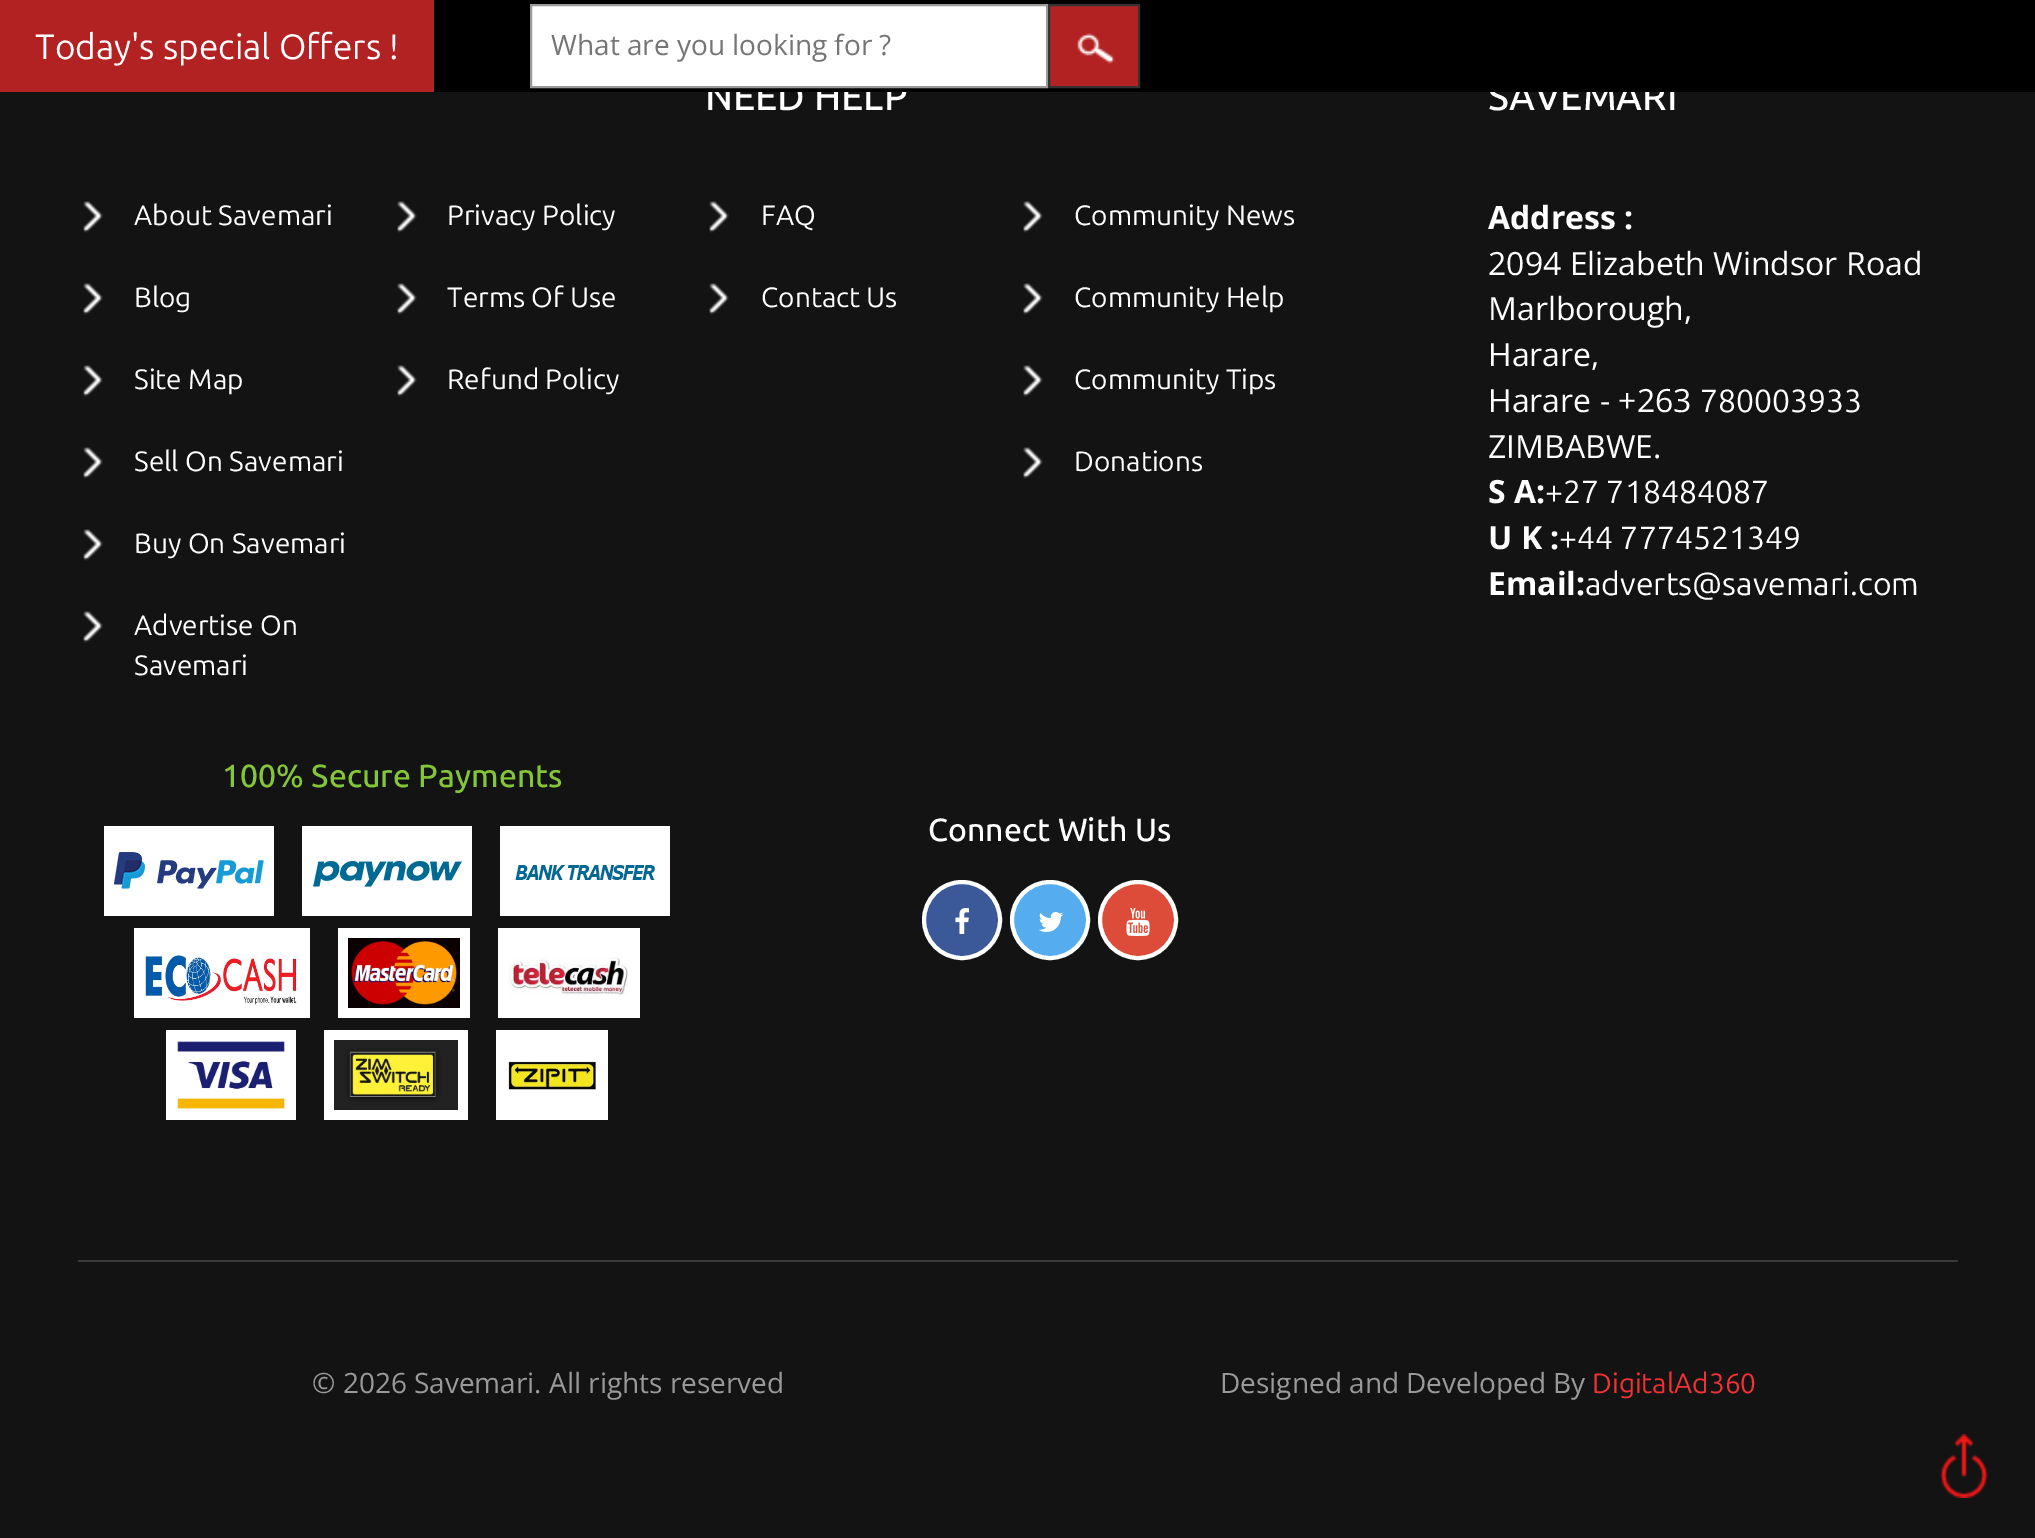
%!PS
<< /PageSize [2035 1538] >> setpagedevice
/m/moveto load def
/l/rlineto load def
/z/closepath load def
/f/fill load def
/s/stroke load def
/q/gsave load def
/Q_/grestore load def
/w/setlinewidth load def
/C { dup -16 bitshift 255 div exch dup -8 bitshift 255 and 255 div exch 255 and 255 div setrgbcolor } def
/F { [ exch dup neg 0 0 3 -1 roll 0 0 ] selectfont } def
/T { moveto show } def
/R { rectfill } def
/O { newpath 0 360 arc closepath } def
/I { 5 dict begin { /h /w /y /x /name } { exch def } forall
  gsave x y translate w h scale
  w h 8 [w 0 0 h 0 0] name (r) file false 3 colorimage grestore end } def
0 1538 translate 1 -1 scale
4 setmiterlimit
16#131313 C
0 0 2035 1538 R
/Ubuntu-Medium 38.5 F
16#FFFFFF C
(NEED HELP) 705 110 T
(SAVEMARI) 1488 110 T
16#000000 C
434 0 1601 92 R
16#B22222 C
0 0 434 92 R
/Ubuntu-Regular 35.25 F
16#FFFFFF C
(Today's special Offers !) 35 59 T
531 5 m 516 0 l 0 82 l -516 0 l z q f Q_
16#999999 C
2 w
s
/OpenSans-Regular 28 F
16#757575 C
(What are you looking for ?) 551 55 T
16#B22222 C
1050 6 88 80 R
(1.rgb) 1077 33 38 31 I
16#333333 C
1049 5 90 82 rectstroke
(2.rgb) 83 201 20 32 I
/Ubuntu-Regular 28 F
16#FFFFFF C
(About Savemari) 134 225 T
(2.rgb) 83 283 20 32 I
(Blog) 134 307 T
(2.rgb) 83 365 20 32 I
(Site Map) 134 389 T
(2.rgb) 83 447 20 32 I
(Sell On Savemari) 134 471 T
(2.rgb) 83 529 20 32 I
(Buy On Savemari) 134 553 T
(2.rgb) 83 611 20 32 I
(Advertise On) 134 635 T
(Savemari) 134 675 T
(3.rgb) 397 201 20 32 I
(Privacy Policy) 447 225 T
(3.rgb) 397 283 20 32 I
(Terms Of Use) 447 307 T
(3.rgb) 397 365 20 32 I
(Refund Policy) 447 389 T
(2.rgb) 709 201 20 32 I
(FAQ) 761 225 T
(2.rgb) 709 283 20 32 I
(Contact Us) 761 307 T
(3.rgb) 1023 201 20 32 I
(Community News) 1074 225 T
(3.rgb) 1023 283 20 32 I
(Community Help) 1074 307 T
(3.rgb) 1023 365 20 32 I
(Community Tips) 1074 389 T
(3.rgb) 1023 447 20 32 I
(Donations) 1074 471 T
/OpenSans-Bold 32 F
(Address :) 1488 229 T
/OpenSans-Regular 32 F
(2094 Elizabeth Windsor Road) 1488 275 T
(Marlborough,) 1488 320 T
(Harare,) 1488 366 T
(Harare - +263) 1488 412 T
/Ubuntu-Regular 32 F
(780003933) 1700 412 T
/OpenSans-Regular 32 F
(ZIMBABWE.) 1488 458 T
/OpenSans-Bold 32 F
(S A:) 1488 503 T
/Ubuntu-Regular 32 F
(+27 718484087) 1545 503 T
/OpenSans-Bold 32 F
(U K :) 1488 549 T
/Ubuntu-Regular 32 F
(+44 7774521349) 1559 549 T
/OpenSans-Bold 32 F
(Email:) 1488 595 T
/Ubuntu-Regular 32 F
(adverts@savemari.com) 1585 595 T
/Ubuntu-Medium 32 F
16#84C639 C
(100% Secure Payments) 222 787 T
16#FFFFFF C
104 826 170 90 R
(4.rgb) 114 852 150 37 I
302 826 170 90 R
(5.rgb) 313 861 149 26 I
500 826 170 90 R
(6.rgb) 515 865 140 15 I
134 928 176 90 R
(7.rgb) 144 955 153 50 I
338 928 132 90 R
(8.rgb) 348 938 112 70 I
498 928 142 90 R
(9.rgb) 508 957 120 40 I
166 1030 130 90 R
(10.rgb) 177 1041 108 68 I
324 1030 144 90 R
(11.rgb) 334 1040 124 70 I
496 1030 112 90 R
(12.rgb) 508 1061 88 29 I
(Connect With Us) 928 841 T
16#3B5998 C
962 920 38 O q f Q_
16#FFFFFF C
4 w
s
(13.rgb) 955 908 14 26 I
16#55ACEE C
1050 920 38 O q f Q_
16#FFFFFF C
s
(14.rgb) 1038 912 26 20 I
16#DD4B39 C
1138 920 38 O q f Q_
16#FFFFFF C
s
(15.rgb) 1126 908 24 28 I
16#3A3A3A C
78 1260 1880 2 R
/OpenSans-Regular 28 F
16#999999 C
(© 2026 Savemari. All rights reserved) 312 1393 T
(Designed and Developed By) 1220 1393 T
/Ubuntu-Regular 28 F
16#F13232 C
(DigitalAd360) 1592 1393 T
(16.rgb) 1939 1434 50 64 I
showpage
